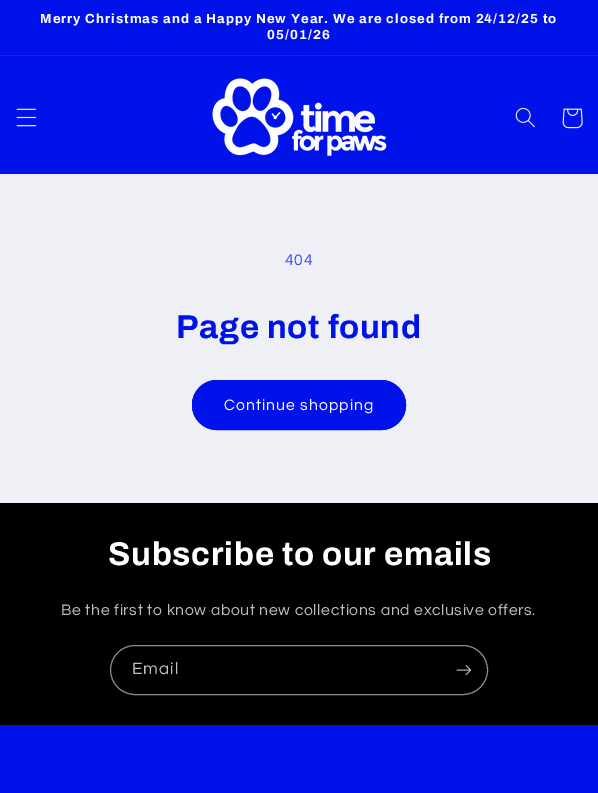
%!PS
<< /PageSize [598 793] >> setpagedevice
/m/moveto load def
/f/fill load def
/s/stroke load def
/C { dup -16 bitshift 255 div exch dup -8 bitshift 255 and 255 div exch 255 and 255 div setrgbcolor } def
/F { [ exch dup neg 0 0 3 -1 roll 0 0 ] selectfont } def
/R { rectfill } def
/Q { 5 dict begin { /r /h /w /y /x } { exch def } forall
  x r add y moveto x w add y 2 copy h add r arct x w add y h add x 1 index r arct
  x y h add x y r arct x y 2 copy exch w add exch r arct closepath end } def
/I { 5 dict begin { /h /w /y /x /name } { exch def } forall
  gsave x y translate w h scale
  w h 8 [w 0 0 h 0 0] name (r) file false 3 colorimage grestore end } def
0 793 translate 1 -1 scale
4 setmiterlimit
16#EFF0F5 C
0 0 598 793 R
16#0012EA C
0 0 598 55 R
16#1425EC C
0 55 598 1 R
/Archivo-Bold 13.2 F
16#FFFFFF C
40 23 m 1.05 0 (Merry Christmas and a Happy New Year. We are closed from 24/12/25 to) ashow
267 39 m 1.05 0 (05/01/26) ashow
16#0012EA C
0 56 598 118 R
(1.rgb) 16 108 20 19 I
(2.rgb) 212 78 175 78 I
(3.rgb) 515 107 20 21 I
(4.rgb) 562 108 21 21 I
/Questrial-Regular 15.75 F
16#3C4AED C
285 265 m .63 0 (404) ashow
/Archivo-Bold 33 F
16#0012EA C
176 338 m .7 0 (Page not found) ashow
192 380 214 50 25 Q f
192.5 380.5 213 49 24.5 Q s
/Questrial-Regular 15.75 F
16#FFFFFF C
224 410 m 1.05 0 (Continue shopping) ashow
16#000000 C
0 503 598 222 R
/Archivo-Bold 33 F
16#FFFFFF C
108 565 m .7 0 (Subscribe to our emails) ashow
/Questrial-Regular 15.75 F
16#BFBFBF C
61 615 m .63 0 (Be the first to know about new collections and exclusive offers.) ashow
16#8C8C8C C
110.5 645.5 377 49 24.5 Q s
/Questrial-Regular 17 F
16#BFBFBF C
132 674 m 1.05 0 (Email) ashow
(5.rgb) 456 665 16 11 I
16#0012EA C
0 725 598 68 R
showpage
